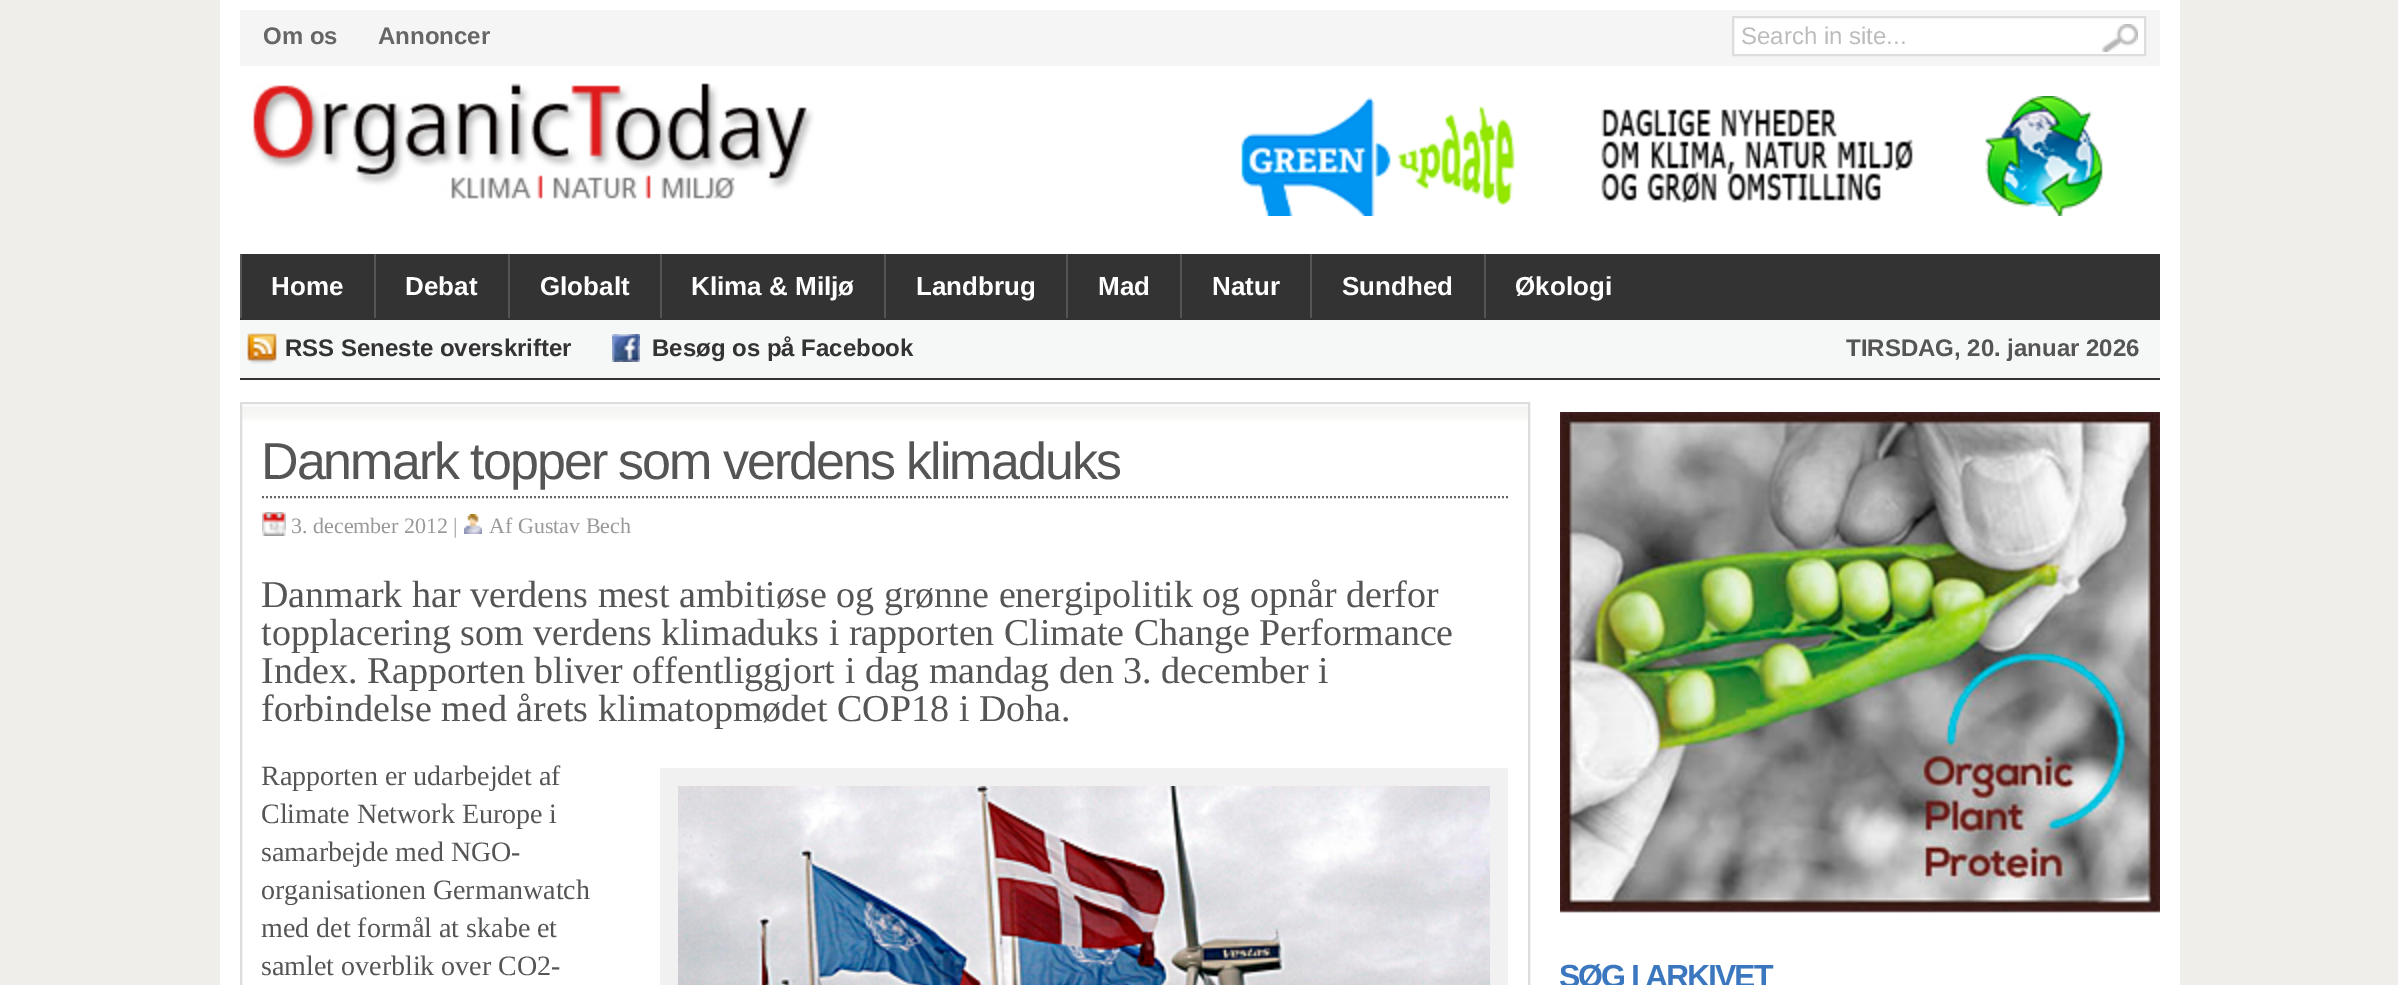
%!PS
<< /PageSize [2398 985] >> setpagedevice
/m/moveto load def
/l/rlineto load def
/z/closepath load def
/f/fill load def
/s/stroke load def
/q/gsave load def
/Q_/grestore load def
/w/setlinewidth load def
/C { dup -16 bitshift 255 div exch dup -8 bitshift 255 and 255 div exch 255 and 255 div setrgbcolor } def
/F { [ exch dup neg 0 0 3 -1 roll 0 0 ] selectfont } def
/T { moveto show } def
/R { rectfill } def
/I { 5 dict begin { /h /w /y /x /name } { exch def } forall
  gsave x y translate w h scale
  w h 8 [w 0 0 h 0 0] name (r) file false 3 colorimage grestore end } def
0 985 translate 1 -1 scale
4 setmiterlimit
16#F0EEEA C
0 0 2398 985 R
16#FFFFFF C
220 0 1960 985 R
16#F5F5F5 C
240 10 1920 56 R
/LiberationSans-Bold 24 F
16#666666 C
(Om os) 263 44 T
(Annoncer) 378 44 T
16#FFFFFF C
1733 17 m 412 0 l 0 38 l -412 0 l z q f Q_
16#DDDDDD C
2 w
s
/LiberationSans-Regular 24 F
16#BCBCBC C
(Search in site...) 1741 44 T
(1.rgb) 2102 24 36 28 I
(2.rgb) 252 83 562 116 I
(3.rgb) 1241 96 862 120 I
16#333333 C
240 254 1920 66 R
16#555555 C
240 254 2 64 R
/LiberationSans-Bold 26 F
16#FFFFFF C
(Home) 271 295 T
16#555555 C
374 254 2 64 R
16#FFFFFF C
(Debat) 405 295 T
16#555555 C
508 254 2 64 R
16#FFFFFF C
(Globalt) 540 295 T
16#555555 C
660 254 2 64 R
16#FFFFFF C
(Klima & Miljø) 691 295 T
16#555555 C
884 254 2 64 R
16#FFFFFF C
(Landbrug) 916 295 T
16#555555 C
1066 254 2 64 R
16#FFFFFF C
(Mad) 1098 295 T
16#555555 C
1180 254 2 64 R
16#FFFFFF C
(Natur) 1212 295 T
16#555555 C
1310 254 2 64 R
16#FFFFFF C
(Sundhed) 1342 295 T
16#555555 C
1484 254 2 64 R
16#FFFFFF C
(Økologi) 1515 295 T
16#F6F7F7 C
240 320 1920 58 R
16#333333 C
240 378 1920 2 R
(4.rgb) 247 333 30 31 I
/LiberationSans-Bold 24 F
(RSS Seneste overskrifter) 285 356 T
(5.rgb) 612 334 28 28 I
(Besøg os på Facebook) 652 356 T
16#555555 C
(TIRSDAG, 20. januar 2026) 1846 356 T
(6.rgb) 242 406 1286 15 I
16#DDDDDD C
241 403 1288 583 rectstroke
/LiberationSans-Regular 52 F
16#555555 C
261 479 m -2 0 (Danmark topper som verdens klimaduks) ashow
16#666666 C
[2 2] 0 setdash
262 497 m 1246 0 l s
(7.rgb) 262 512 24 24 I
/LiberationSerif-Regular 22 F
16#999999 C
(3. december 2012 |) 291 533 T
(8.rgb) 464 514 18 20 I
(Af Gustav Bech) 489 533 T
/LiberationSerif-Regular 38 F
16#555555 C
(Danmark har verdens mest ambitiøse og grønne energipolitik og opnår derfor) 261 607 T
(topplacering som verdens klimaduks i rapporten Climate Change Performance) 261 645 T
(Index. Rapporten bliver offentliggjort i dag mandag den 3. december i) 261 683 T
(forbindelse med årets klimatopmødet COP18 i Doha.) 261 721 T
/LiberationSerif-Regular 28 F
(Rapporten er udarbejdet af) 261 785 T
(Climate Network Europe i) 261 823 T
(samarbejde med NGO-) 261 861 T
(organisationen Germanwatch) 261 899 T
(med det formål at skabe et) 261 937 T
(samlet overblik over CO2-) 261 975 T
16#F1F1F1 C
660 768 848 217 R
(9.rgb) 678 786 812 199 I
(10.rgb) 1560 412 600 501 I
/LiberationSans-Bold 32 F
16#3B77BF C
1559 987 m -2 0 (SØG I ARKIVET) ashow
showpage
